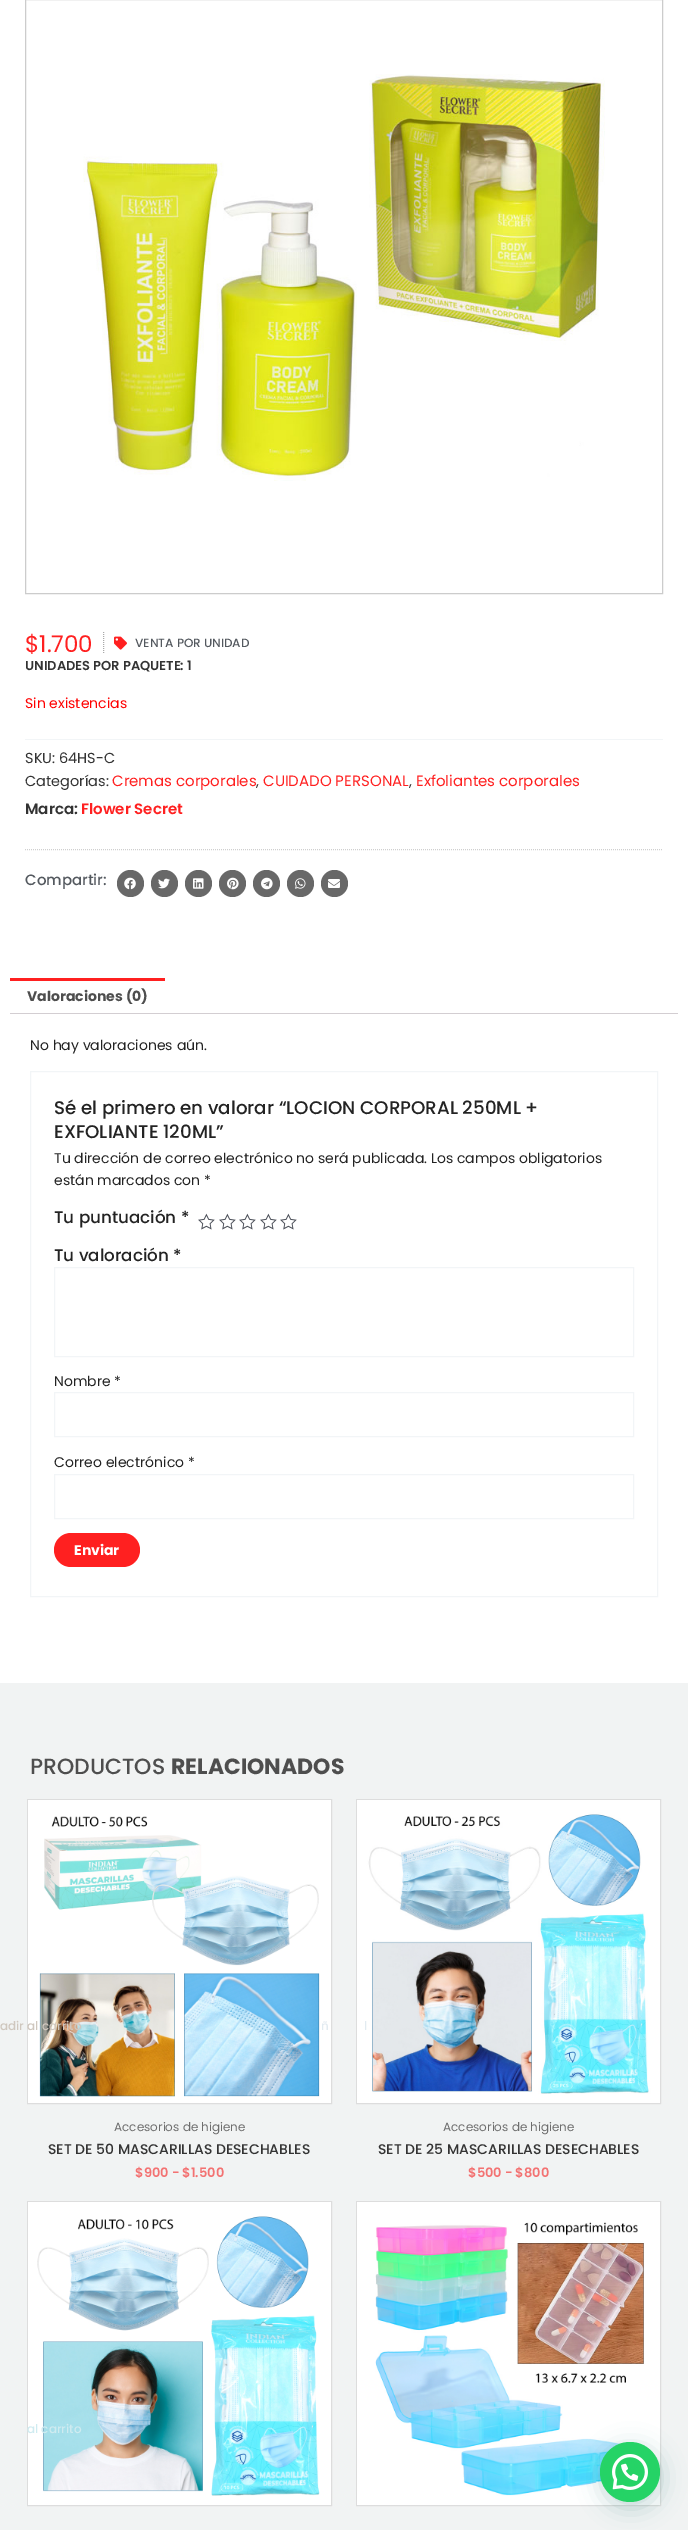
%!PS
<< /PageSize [688 2530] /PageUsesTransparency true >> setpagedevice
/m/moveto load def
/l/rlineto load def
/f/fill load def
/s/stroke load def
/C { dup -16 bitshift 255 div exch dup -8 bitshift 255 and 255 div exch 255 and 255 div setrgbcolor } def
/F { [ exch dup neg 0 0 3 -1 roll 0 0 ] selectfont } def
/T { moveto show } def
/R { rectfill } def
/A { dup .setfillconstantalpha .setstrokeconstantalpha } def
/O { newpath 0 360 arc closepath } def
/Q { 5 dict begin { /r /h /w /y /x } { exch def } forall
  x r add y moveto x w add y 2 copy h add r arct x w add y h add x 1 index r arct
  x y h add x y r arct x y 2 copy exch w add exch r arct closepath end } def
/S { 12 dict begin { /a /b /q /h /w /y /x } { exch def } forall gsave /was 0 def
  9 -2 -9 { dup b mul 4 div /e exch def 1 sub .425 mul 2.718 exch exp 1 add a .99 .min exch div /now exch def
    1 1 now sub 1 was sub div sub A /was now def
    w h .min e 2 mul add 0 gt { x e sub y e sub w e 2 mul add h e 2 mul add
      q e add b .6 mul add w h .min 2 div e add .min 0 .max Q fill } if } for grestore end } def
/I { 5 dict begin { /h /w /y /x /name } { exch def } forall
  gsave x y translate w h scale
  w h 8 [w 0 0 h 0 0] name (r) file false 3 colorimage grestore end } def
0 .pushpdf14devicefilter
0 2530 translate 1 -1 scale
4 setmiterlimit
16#FFFFFF C
0 0 688 2530 R
16#CCCCCC C
25.5 -.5 637 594 rectstroke
(1.rgb) 83 74 522 407 I
/Poppins-Regular 23 F
16#FF2020 C
($1.700) 25 652 T
16#A9A9A9 C
[1 1] 0 setdash
103.5 632 m 0 22 l s
(2.rgb) 114 636 13 14 I
/Poppins-Medium 12 F
16#54595F C
(VENTA POR UNIDAD) 135 647 T
/Poppins-SemiBold 13 F
16#333333 C
(UNIDADES POR PAQUETE: 1) 25 670 T
/Poppins-Regular 14 F
16#FF0000 C
(Sin existencias) 25 708 T
16#F2F5F7 C
25 739 638 1 R
/Poppins-Regular 14.5 F
16#333333 C
(SKU: 64HS-C) 25 763 T
(Categorías:) 25 786 T
/Poppins-Regular 15 F
16#FF2020 C
(Cremas corporales) 112 786 T
/Poppins-Regular 14.5 F
16#333333 C
(,) 256 786 T
/Poppins-Regular 15 F
16#FF2020 C
(CUIDADO PERSONAL) 263 786 T
/Poppins-Regular 14.5 F
16#333333 C
(,) 409 786 T
/Poppins-Regular 15 F
16#FF2020 C
(Exfoliantes corporales) 416 786 T
/Poppins-SemiBold 15 F
16#333333 C
(Marca:) 25 814 T
16#FF2020 C
(Flower Secret) 81 814 T
16#CFCFCF C
25 849.5 m 638 0 l s
/Poppins-Medium 15 F
16#54595F C
(Compartir:) 25 885 T
16#686868 C
130.5 883.5 13.5 O f
(3.rgb) 124 877 12 13 I
164.5 883.5 13.5 O f
(4.rgb) 158 878 12 11 I
198.5 883.5 13.5 O f
(5.rgb) 193 878 11 11 I
232.5 883.5 13.5 O f
(6.rgb) 227 877 12 13 I
266.5 883.5 13.5 O f
(7.rgb) 261 877 12 13 I
300.5 883.5 13.5 O f
(8.rgb) 295 878 11 11 I
334.5 883.5 13.5 O f
(9.rgb) 328 879 12 9 I
16#FF2020 C
10 978 155 3 R
/Poppins-Bold 14 F
16#4E4E4E C
(Valoraciones \(0\)) 27 1001 T
16#D3CED2 C
10 1013 668 1 R
/Poppins-Regular 14 F
16#232323 C
(No hay valoraciones aún.) 30 1050 T
16#F2F5F7 C
[] 0 setdash
30.5 1071.5 627 525 rectstroke
/Poppins-Medium 18.3 F
16#232323 C
(Sé el primero en valorar “LOCION CORPORAL 250ML +) 54 1114 T
(EXFOLIANTE 120ML”) 54 1138 T
/Poppins-Regular 14 F
(Tu dirección de correo electrónico no será publicada. Los campos obligatorios) 54 1163 T
(están marcados con *) 54 1185 T
/Poppins-Medium 16.75 F
(Tu puntuación *) 54 1223 T
(10.rgb) 198 1213 17 17 I
(10.rgb) 219 1213 17 17 I
(10.rgb) 239 1213 17 17 I
(10.rgb) 260 1213 17 17 I
(10.rgb) 280 1213 17 17 I
(Tu valoración *) 54 1261 T
16#F2F5F7 C
54.5 1267.5 579 89 rectstroke
/Poppins-Regular 14 F
16#232323 C
(Nombre *) 54 1386 T
16#F2F5F7 C
54.5 1392.5 579 44 rectstroke
16#232323 C
(Correo electrónico *) 54 1467 T
16#F2F5F7 C
54.5 1474.5 579 44 rectstroke
16#FF2020 C
54 1533 86 34 17 Q f
/Poppins-Bold 14 F
16#FFFFFF C
(Enviar) 74 1555 T
16#F1F3F3 C
0 1683 688 847 R
/Poppins-Medium 22 F
16#4E4E4E C
(PRODUCTOS) 30 1774 T
/Poppins-Bold 22 F
(RELACIONADOS) 171 1774 T
16#DDDDDD C
27.5 1799.5 304 304 rectstroke
(11.rgb) 28 1800 303 303 I
/Poppins-Medium 12 F
16#CFC7BE C
(adir al carrito) 0 2030 T
/Poppins-Regular 12 F
16#6E6E6E C
(Accesorios de higiene) 114 2131 T
/Poppins-Medium 14 F
16#333333 C
(SET DE 50 MASCARILLAS DESECHABLES) 48 2154 T
/Poppins-SemiBold 13 F
16#F37272 C
($900 - $1.500) 135 2177 T
/Poppins-Medium 12 F
16#E2EBF1 C
(ñ) 321 2030 T
16#DDDDDD C
356.5 1799.5 304 304 rectstroke
(12.rgb) 357 1800 303 303 I
16#E2EBF1 C
(l) 364 2030 T
/Poppins-Regular 12 F
16#6E6E6E C
(Accesorios de higiene) 443 2131 T
/Poppins-Medium 14 F
16#333333 C
(SET DE 25 MASCARILLAS DESECHABLES) 378 2154 T
/Poppins-SemiBold 13 F
16#F37272 C
($500 - $800) 468 2177 T
16#DDDDDD C
27.5 2201.5 304 304 rectstroke
(13.rgb) 28 2202 303 303 I
/Poppins-Medium 12 F
16#CFEBF0 C
(al carrito) 27 2433 T
16#DDDDDD C
356.5 2201.5 304 304 rectstroke
(14.rgb) 357 2202 303 303 I
16#075E54 C
601 2448 60 60 30 12 .24 S
16#25D366 C
630 2472 30 O f
(15.rgb) 612 2454 36 36 I
.poppdf14devicefilter showpage
